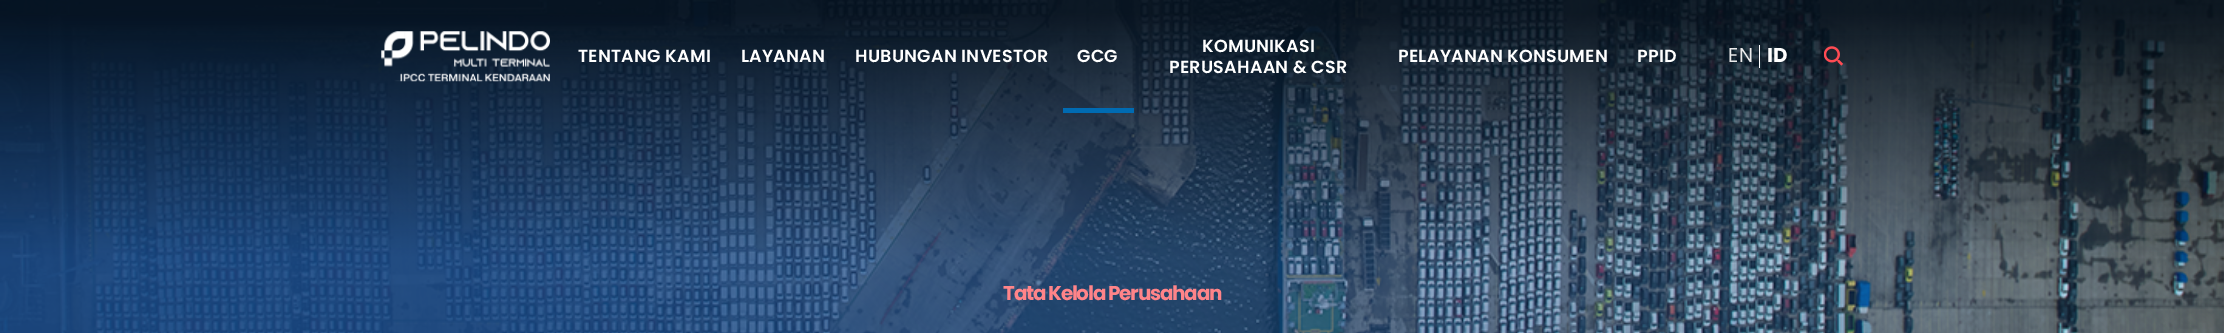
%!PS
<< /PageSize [2224 333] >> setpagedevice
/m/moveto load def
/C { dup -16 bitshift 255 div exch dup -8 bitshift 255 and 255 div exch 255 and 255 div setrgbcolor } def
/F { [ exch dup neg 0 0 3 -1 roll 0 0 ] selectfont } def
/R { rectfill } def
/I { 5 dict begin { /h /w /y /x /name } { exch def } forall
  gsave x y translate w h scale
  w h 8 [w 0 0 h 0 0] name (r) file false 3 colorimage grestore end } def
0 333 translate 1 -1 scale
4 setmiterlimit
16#FFFFFF C
0 0 2224 333 R
(3.rgb) 0 0 2224 333 I
(1.rgb) 381 31 169 51 I
/Poppins-SemiBold 17.5 F
578 62 m .25 0 (TENTANG KAMI) ashow
741 62 m .25 0 (LAYANAN) ashow
855 62 m .25 0 (HUBUNGAN INVESTOR) ashow
1077 62 m .25 0 (GCG) ashow
16#006BB2 C
1063 108 71 5 R
16#FFFFFF C
1202 52 m .25 0 (KOMUNIKASI) ashow
1169 73 m .25 0 (PERUSAHAAN & CSR) ashow
1398 62 m .25 0 (PELAYANAN KONSUMEN) ashow
1637 62 m .25 0 (PPID) ashow
1759 45 1 23 R
/Poppins-Regular 20 F
16#ECECEC C
1728 62 m .25 0 (EN) ashow
/Poppins-Bold 20 F
16#FFFFFF C
1767 62 m .25 0 (ID) ashow
(2.rgb) 1824 46 20 20 I
16#FF8489 C
1003 300 m -1.25 0 (Tata Kelola Perusahaan) ashow
showpage
